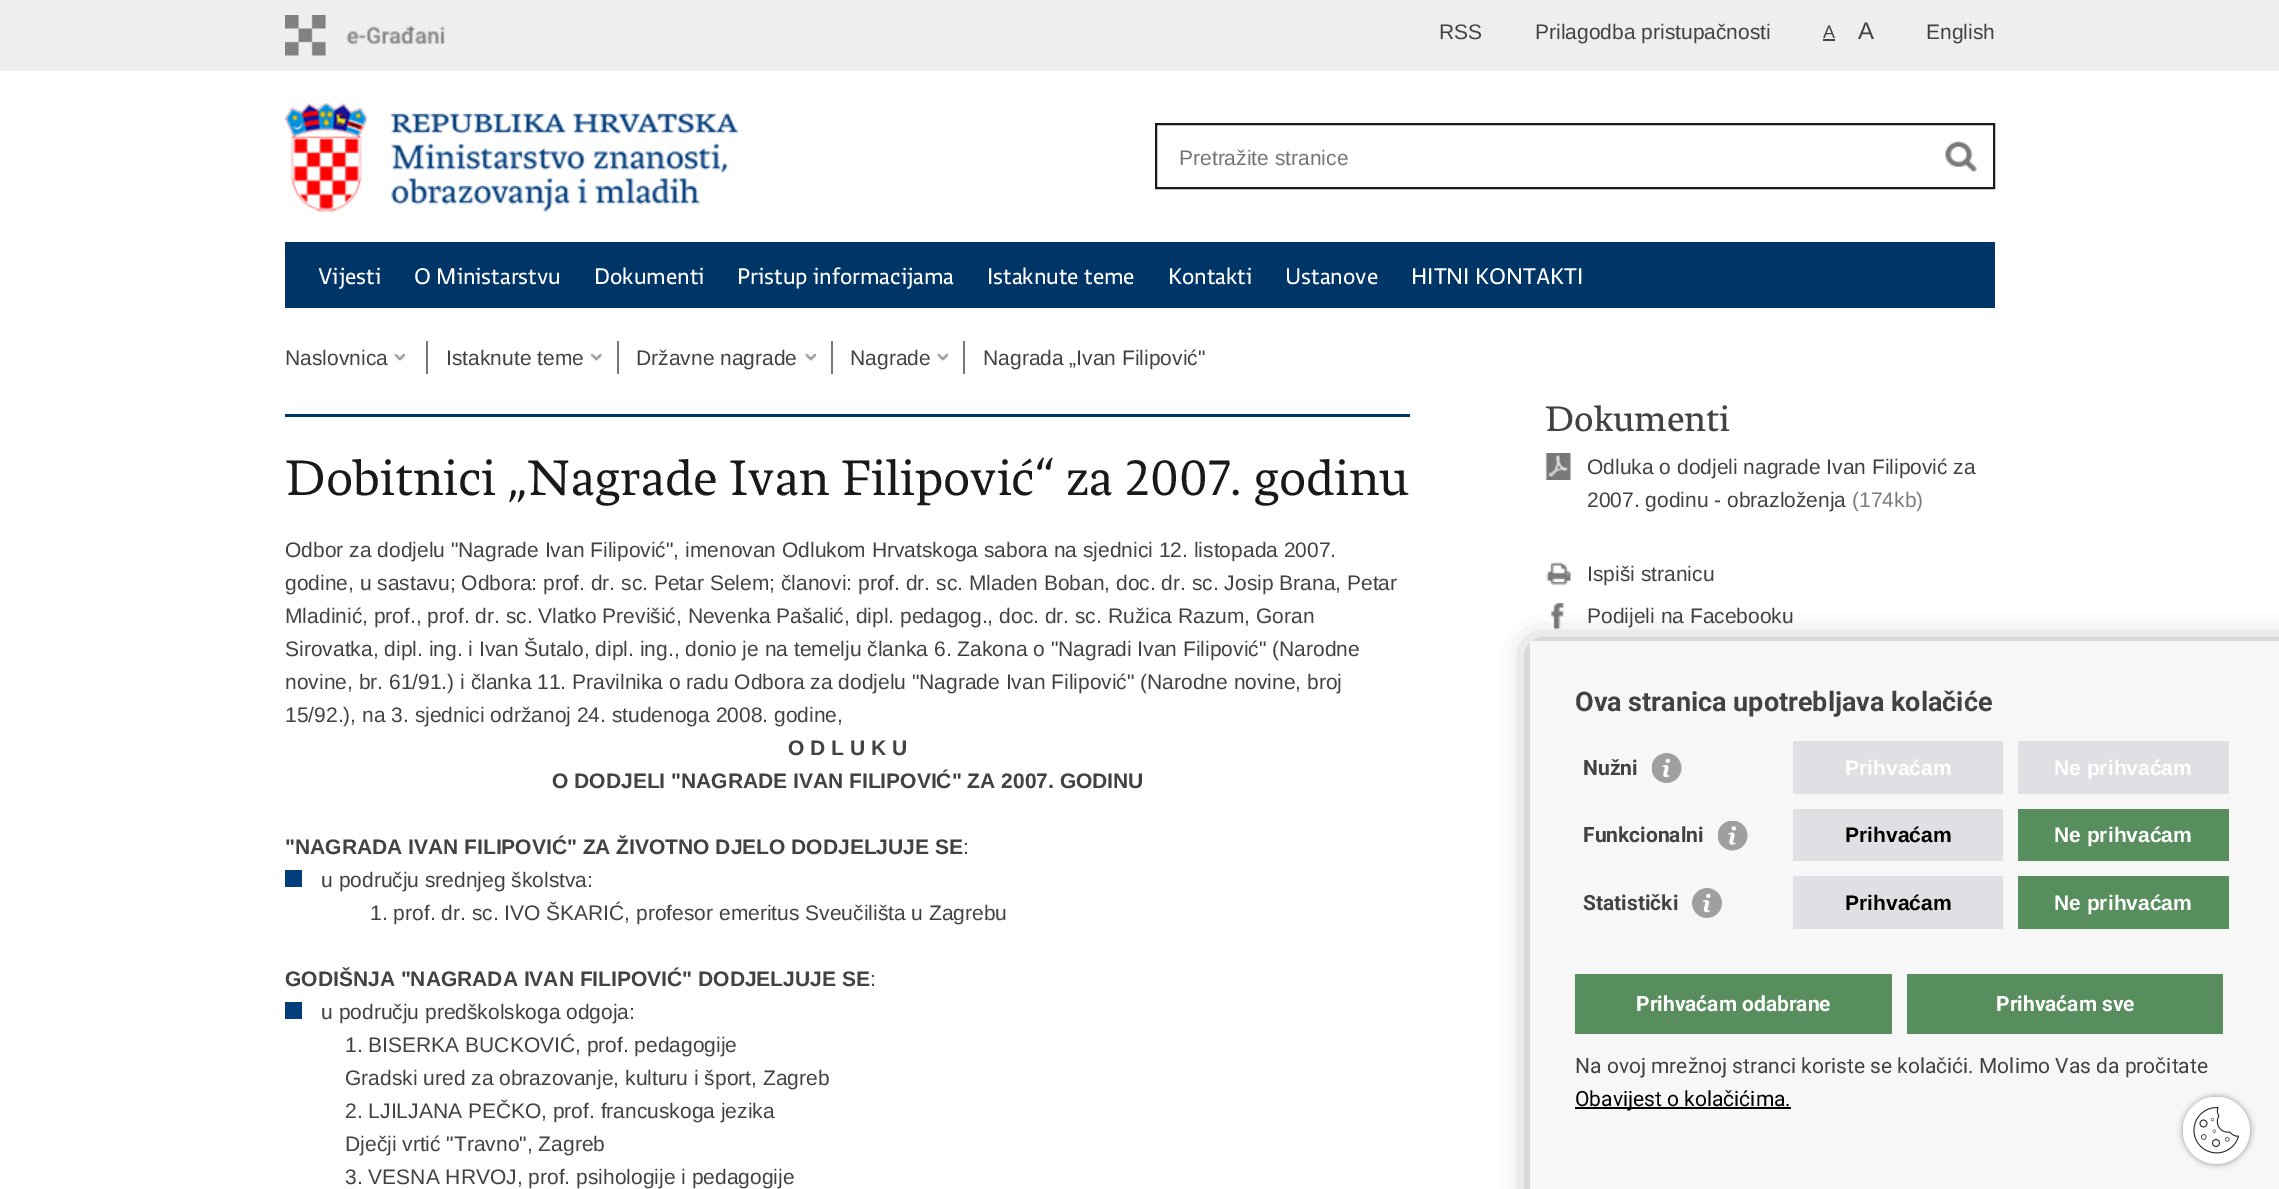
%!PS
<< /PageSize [2279 1189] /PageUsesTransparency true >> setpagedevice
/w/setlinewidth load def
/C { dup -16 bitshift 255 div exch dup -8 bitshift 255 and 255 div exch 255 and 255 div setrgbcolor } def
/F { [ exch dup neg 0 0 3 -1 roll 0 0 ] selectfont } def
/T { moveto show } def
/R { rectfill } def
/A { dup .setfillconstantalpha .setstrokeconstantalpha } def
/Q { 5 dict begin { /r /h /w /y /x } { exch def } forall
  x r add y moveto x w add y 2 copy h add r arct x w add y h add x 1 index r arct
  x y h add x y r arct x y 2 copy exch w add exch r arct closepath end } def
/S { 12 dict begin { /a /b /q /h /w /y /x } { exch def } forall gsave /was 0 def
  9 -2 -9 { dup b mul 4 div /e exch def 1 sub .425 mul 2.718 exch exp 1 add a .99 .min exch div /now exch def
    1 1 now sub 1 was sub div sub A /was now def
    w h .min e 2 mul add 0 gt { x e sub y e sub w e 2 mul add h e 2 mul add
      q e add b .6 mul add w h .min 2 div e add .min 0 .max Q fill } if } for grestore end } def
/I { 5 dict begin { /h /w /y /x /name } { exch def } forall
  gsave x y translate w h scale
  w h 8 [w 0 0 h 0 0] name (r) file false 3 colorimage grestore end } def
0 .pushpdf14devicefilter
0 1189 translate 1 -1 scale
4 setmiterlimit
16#FFFFFF C
0 0 2279 1189 R
16#EEEEEE C
0 0 2279 71 R
(1.rgb) 285 15 160 41 I
/LiberationSans-Regular 21 F
16#424242 C
(RSS) 1439 39 T
(Prilagodba pristupačnosti) 1535 39 T
/LiberationSans-Regular 18 F
(A) 1823 38 T
1823 39 12 2 R
/LiberationSans-Regular 24 F
(A) 1858 39 T
/LiberationSans-Regular 21 F
(English) 1926 39 T
(2.rgb) 285 103 454 109 I
16#191919 C
2 w
1156 124 838 64 rectstroke
16#757575 C
(Pretražite stranice) 1179 165 T
(3.rgb) 1945 141 32 32 I
16#003567 C
285 242 1710 66 R
/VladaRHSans-Regular 24 F
16#FFFFFF C
(Vijesti) 318 284 T
(O Ministarstvu) 414 284 T
(Dokumenti) 594 284 T
(Pristup informacijama) 737 284 T
(Istaknute teme) 987 284 T
(Kontakti) 1168 284 T
(Ustanove) 1285 284 T
(HITNI KONTAKTI) 1411 284 T
/LiberationSans-Regular 21 F
16#424242 C
(Naslovnica) 285 365 T
(4.rgb) 394 354 11 7 I
16#787878 C
426 341 2 33 R
16#424242 C
(Istaknute teme) 446 365 T
(5.rgb) 591 354 11 8 I
16#787878 C
617 341 2 33 R
16#424242 C
(Državne nagrade) 636 365 T
(6.rgb) 805 354 11 7 I
16#787878 C
831 341 2 33 R
16#424242 C
(Nagrade) 850 365 T
(6.rgb) 937 354 11 7 I
16#787878 C
963 341 2 33 R
16#424242 C
(Nagrada „Ivan Filipović") 983 365 T
16#003567 C
285 414 1125 3 R
/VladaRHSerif-Regular 52.5 F
16#191919 C
(Dobitnici „Nagrade Ivan Filipović“ za 2007. godinu) 285 495 T
/LiberationSans-Regular 21 F
16#424242 C
(Odbor za dodjelu "Nagrade Ivan Filipović", imenovan Odlukom Hrvatskoga sabora na sjednici 12. listopada 2007.) 285 557 T
(godine, u sastavu; Odbora: prof. dr. sc. Petar Selem; članovi: prof. dr. sc. Mladen Boban, doc. dr. sc. Josip Brana, Petar) 285 590 T
(Mladinić, prof., prof. dr. sc. Vlatko Previšić, Nevenka Pašalić, dipl. pedagog., doc. dr. sc. Ružica Razum, Goran) 285 623 T
(Sirovatka, dipl. ing. i Ivan Šutalo, dipl. ing., donio je na temelju članka 6. Zakona o "Nagradi Ivan Filipović" \(Narodne) 285 656 T
(novine, br. 61/91.\) i članka 11. Pravilnika o radu Odbora za dodjelu "Nagrade Ivan Filipović" \(Narodne novine, broj) 285 689 T
(15/92.\), na 3. sjednici održanoj 24. studenoga 2008. godine,) 285 722 T
/LiberationSans-Bold 21 F
(O D L U K U) 788 755 T
(O DODJELI "NAGRADE IVAN FILIPOVIĆ" ZA 2007. GODINU) 552 788 T
("NAGRADA IVAN FILIPOVIĆ" ZA ŽIVOTNO DJELO DODJELJUJE SE) 285 854 T
/LiberationSans-Regular 21 F
(:) 963 854 T
16#033E7C C
285 870 17 17 R
16#424242 C
(u području srednjeg školstva:) 321 887 T
(1. prof. dr. sc. IVO ŠKARIĆ, profesor emeritus Sveučilišta u Zagrebu) 370 920 T
/LiberationSans-Bold 21 F
(GODIŠNJA "NAGRADA IVAN FILIPOVIĆ" DODJELJUJE SE) 285 986 T
/LiberationSans-Regular 21 F
(:) 870 986 T
16#033E7C C
285 1002 17 17 R
16#424242 C
(u području predškolskoga odgoja:) 321 1019 T
(1. BISERKA BUCKOVIĆ, prof. pedagogije) 345 1052 T
(Gradski ured za obrazovanje, kulturu i šport, Zagreb) 345 1085 T
(2. LJILJANA PEČKO, prof. francuskoga jezika) 345 1118 T
(Dječji vrtić "Travno", Zagreb) 345 1151 T
(3. VESNA HRVOJ, prof. psihologije i pedagogije) 345 1184 T
/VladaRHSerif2-Regular 37.5 F
(Dokumenti) 1545 431 T
(7.rgb) 1545 453 26 27 I
/LiberationSans-Regular 21 F
(Odluka o dodjeli nagrade Ivan Filipović za) 1587 474 T
(2007. godinu - obrazloženja) 1587 507 T
16#7D7D7D C
(\(174kb\)) 1852 507 T
(8.rgb) 1546 562 25 24 I
16#424242 C
(Ispiši stranicu) 1587 581 T
(9.rgb) 1550 603 15 27 I
(Podijeli na Facebooku) 1587 623 T
16#000000 C
1535 648 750 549 0 15 .5 S
16#F7F7F7 C
1530 641 749 548 R
/Roboto-Bold 27 F
16#424242 C
(Ova stranica upotrebljava kolačiće) 1575 711 T
/Roboto-Bold 21 F
(Nužni) 1583 775 T
(10.rgb) 1652 753 30 30 I
16#E0E0E4 C
1793 741 210 53 R
/LiberationSans-Bold 21 F
16#FFFFFF C
(Prihvaćam) 1845 775 T
16#E0E0E4 C
2018 741 211 53 R
16#FFFFFF C
(Ne prihvaćam) 2054 775 T
/Roboto-Bold 21 F
16#424242 C
(Funkcionalni) 1583 842 T
(11.rgb) 1718 821 30 30 I
16#E0E0E4 C
1793 809 210 52 R
/LiberationSans-Bold 21 F
16#000000 C
(Prihvaćam) 1845 842 T
16#588E5E C
2018 809 211 52 R
16#FFFFFF C
(Ne prihvaćam) 2054 842 T
/Roboto-Bold 21 F
16#424242 C
(Statistički) 1583 910 T
(12.rgb) 1692 888 30 30 I
16#E0E0E4 C
1793 876 210 53 R
/LiberationSans-Bold 21 F
16#000000 C
(Prihvaćam) 1845 910 T
16#588E5E C
2018 876 211 53 R
16#FFFFFF C
(Ne prihvaćam) 2054 910 T
16#588E5E C
1575 974 317 60 R
/Roboto-Bold 21 F
16#FFFFFF C
(Prihvaćam odabrane) 1636 1011 T
16#588E5E C
1907 974 316 60 R
16#FFFFFF C
(Prihvaćam sve) 1996 1011 T
/Roboto-Regular 21 F
16#424242 C
(Na ovoj mrežnoj stranci koriste se kolačići. Molimo Vas da pročitate) 1575 1073 T
16#000000 C
1575 1107 216 2 R
(Obavijest o kolačićima.) 1575 1106 T
16#858585 C
2183 1097 67 67 33.5 3 1 S
(13.rgb) 2183 1097 67 67 I
.poppdf14devicefilter showpage
